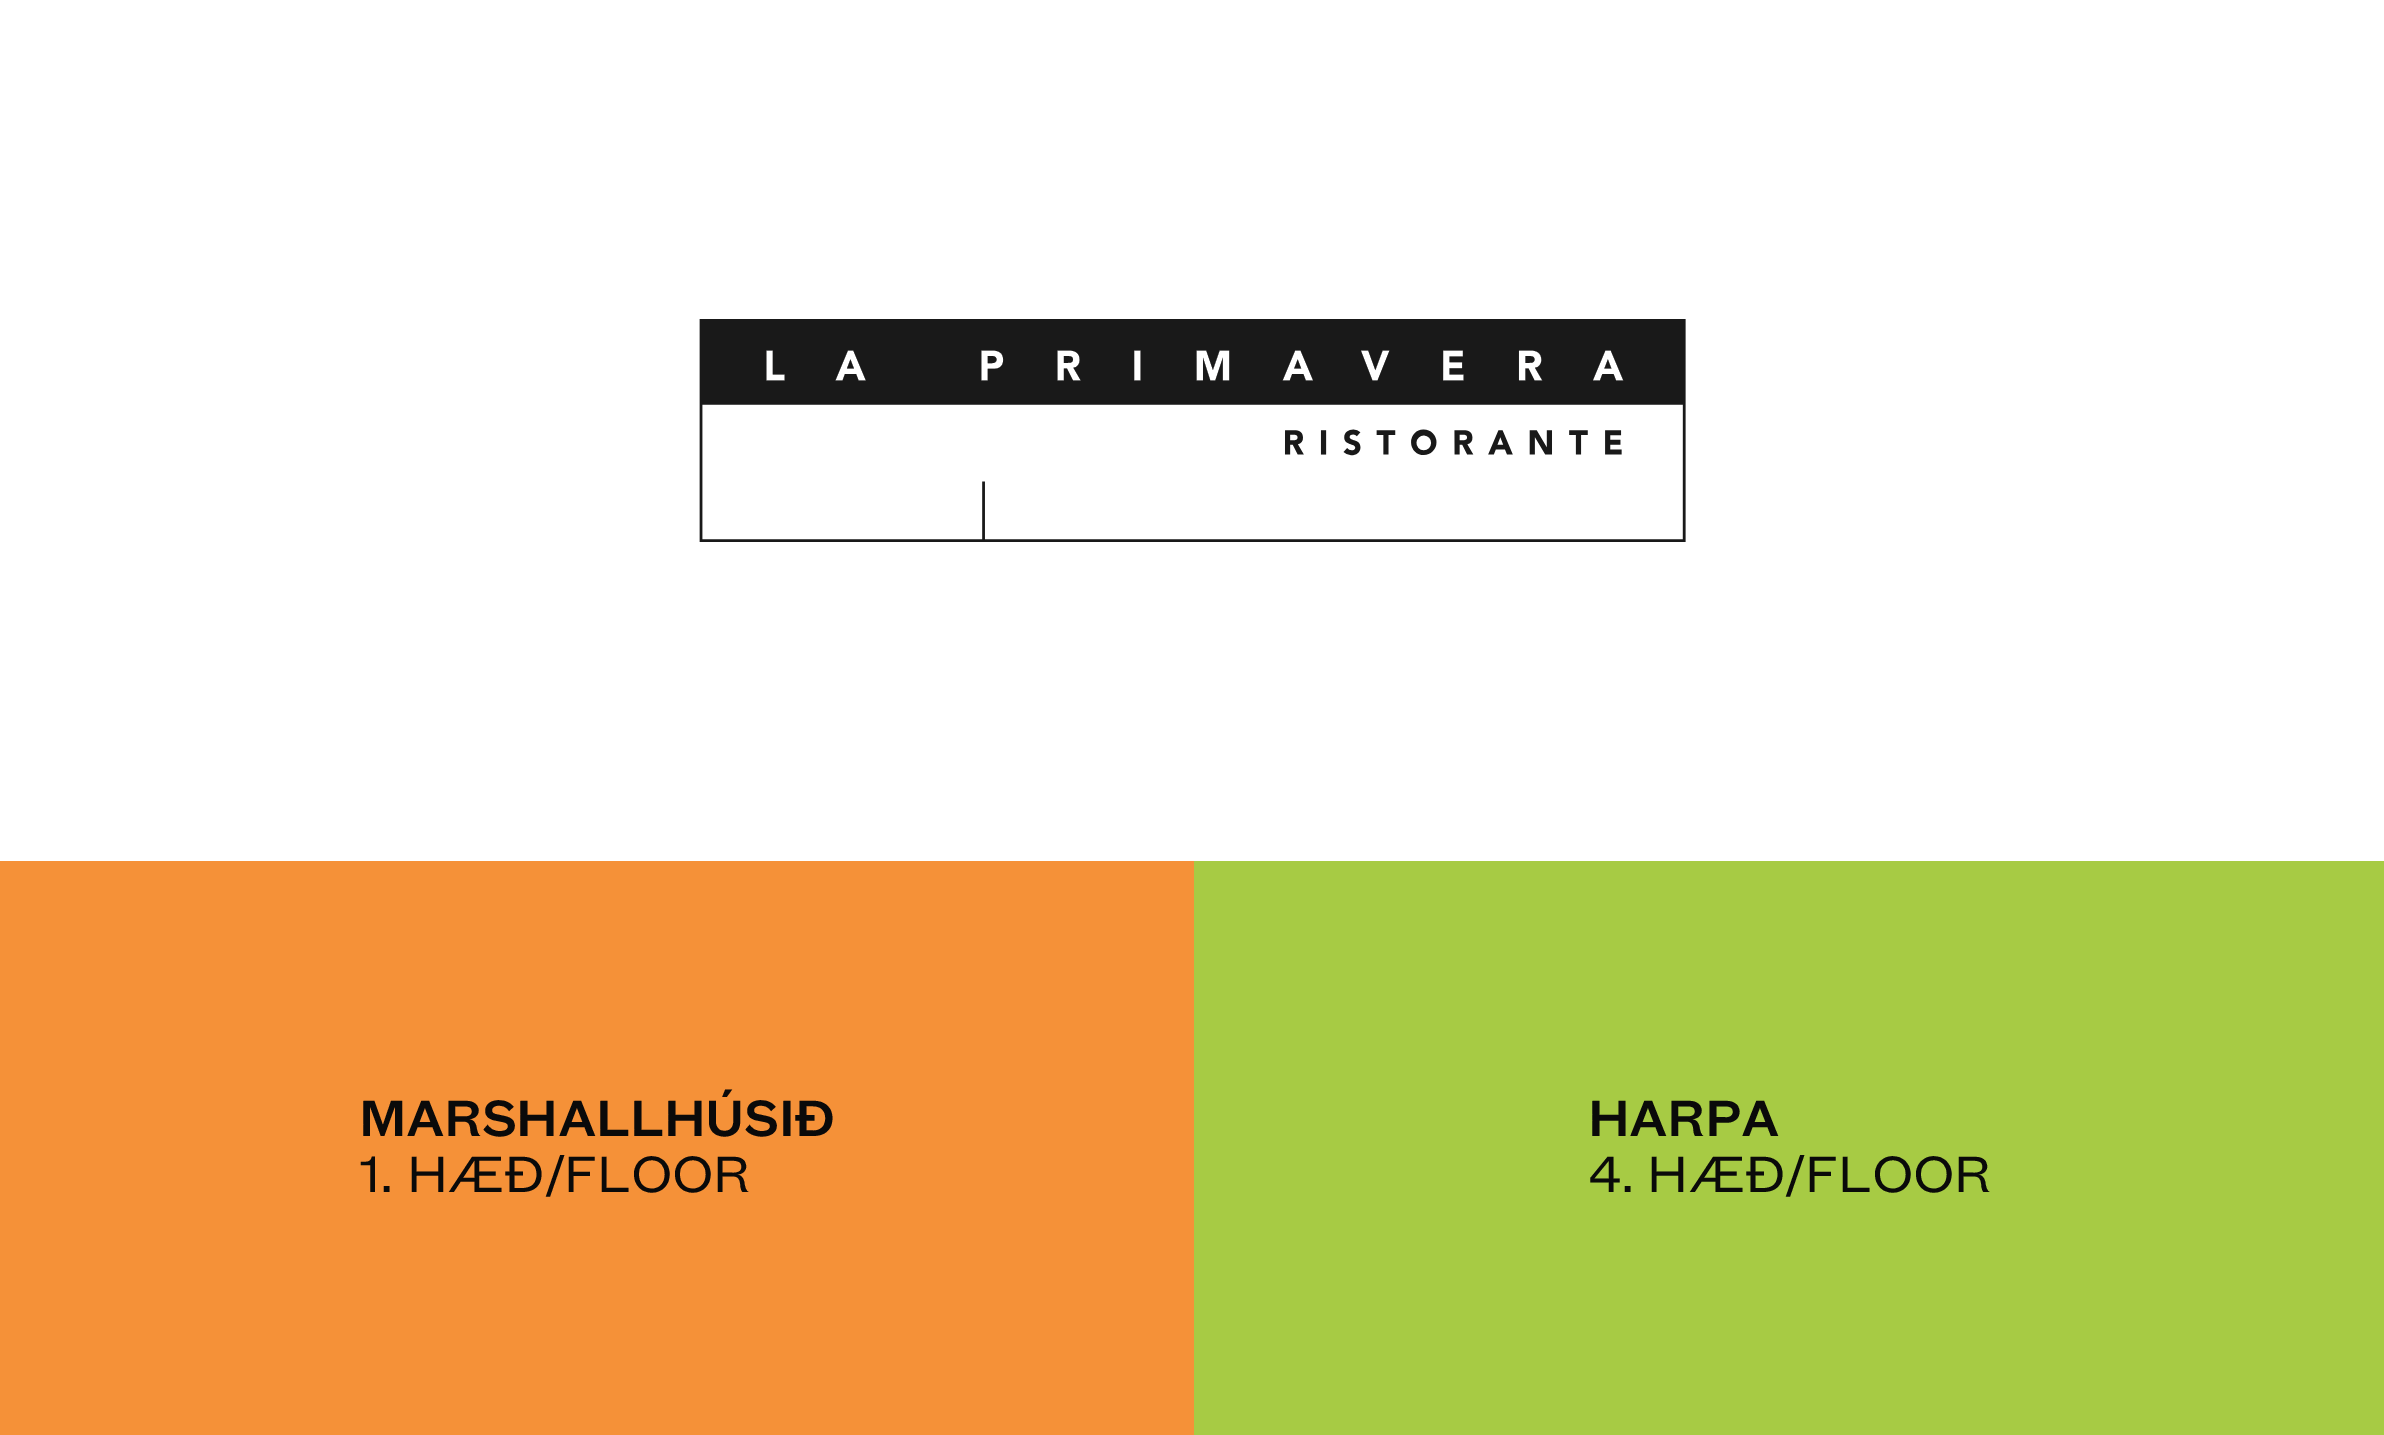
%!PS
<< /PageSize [2384 1435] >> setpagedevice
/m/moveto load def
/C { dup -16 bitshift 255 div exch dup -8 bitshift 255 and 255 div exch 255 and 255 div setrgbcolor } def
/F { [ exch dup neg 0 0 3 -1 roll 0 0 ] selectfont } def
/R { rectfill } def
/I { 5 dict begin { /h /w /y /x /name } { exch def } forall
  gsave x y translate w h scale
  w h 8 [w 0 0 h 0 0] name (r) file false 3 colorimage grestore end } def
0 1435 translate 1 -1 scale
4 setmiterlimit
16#A7CB44 C
0 0 2384 1435 R
16#FFFFFF C
0 0 2384 861 R
(1.rgb) 699 319 987 223 I
16#F59138 C
0 861 1194 574 R
/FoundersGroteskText-Medium 56 F
16#0A0A0A C
359 1136 m -.5 0 (MARSHALLHÚSIÐ) ashow
/FoundersGroteskText-Regular 56 F
359 1192 m -.5 0 (1. HÆÐ/FLOOR) ashow
/FoundersGroteskText-Medium 56 F
1588 1136 m -.5 0 (HARPA) ashow
/FoundersGroteskText-Regular 56 F
1588 1192 m -.5 0 (4. HÆÐ/FLOOR) ashow
showpage
